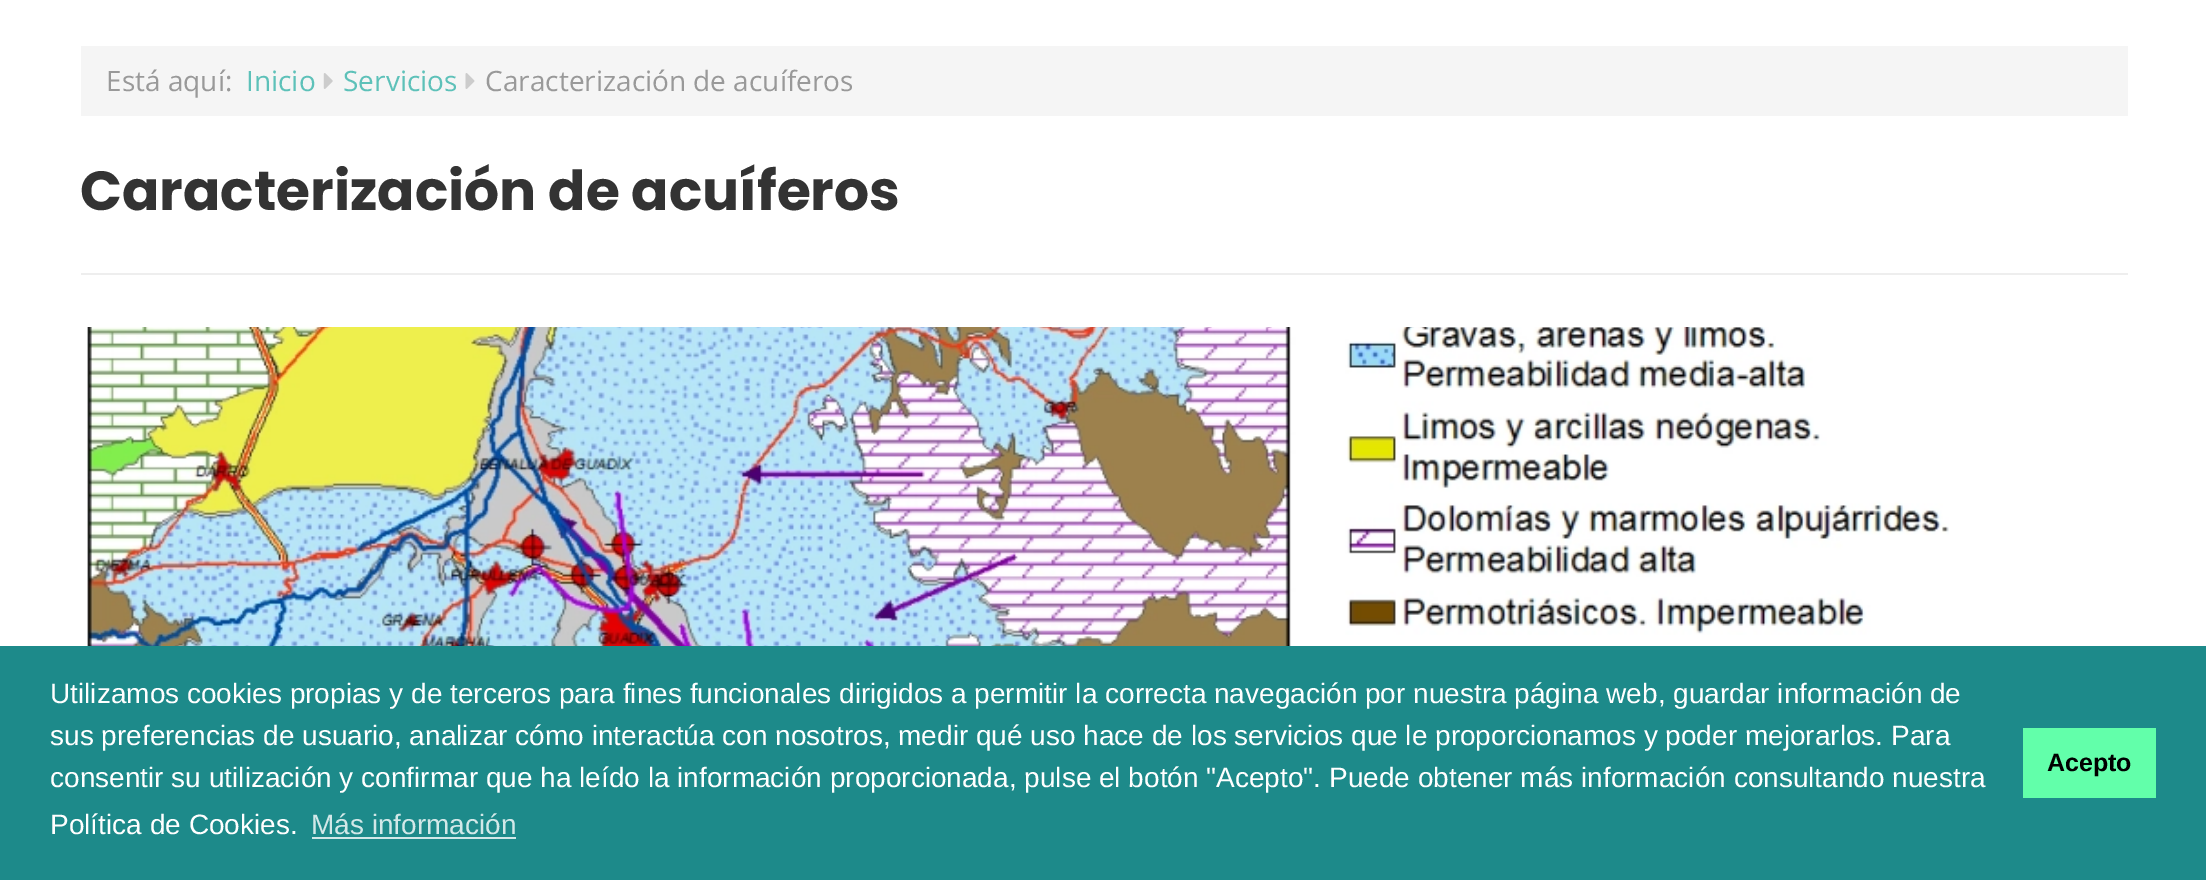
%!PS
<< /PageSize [2206 880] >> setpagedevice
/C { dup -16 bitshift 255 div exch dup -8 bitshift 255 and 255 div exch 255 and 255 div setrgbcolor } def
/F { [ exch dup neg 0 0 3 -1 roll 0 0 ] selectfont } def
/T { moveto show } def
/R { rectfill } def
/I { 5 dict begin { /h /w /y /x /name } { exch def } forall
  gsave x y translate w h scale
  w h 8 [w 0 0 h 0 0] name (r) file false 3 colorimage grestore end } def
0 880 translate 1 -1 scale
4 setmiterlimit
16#FFFFFF C
0 0 2206 880 R
16#F5F5F5 C
81 46 2047 70 R
/OpenSans-Regular 28 F
16#999999 C
(Está aquí:) 106 91 T
16#5DC1B9 C
(Inicio) 246 91 T
(1.rgb) 323 73 10 16 I
(Servicios) 343 91 T
(2.rgb) 465 73 10 16 I
16#999999 C
(Caracterización de acuíferos) 485 91 T
16#EEEEEE C
81 273 2047 2 R
/Poppins-Bold 55.1 F
16#333333 C
(Caracterización de acuíferos) 80 210 T
(3.rgb) 87 327 1862 319 I
16#1D8A8A C
0 646 2206 234 R
/LiberationSans-Regular 28 F
16#FFFFFF C
(Utilizamos cookies propias y de terceros para fines funcionales dirigidos a permitir la correcta navegación por nuestra página web, guardar información de) 50 703 T
(sus preferencias de usuario, analizar cómo interactúa con nosotros, medir qué uso hace de los servicios que le proporcionamos y poder mejorarlos. Para) 50 745 T
(consentir su utilización y confirmar que ha leído la información proporcionada, pulse el botón "Acepto". Puede obtener más información consultando nuestra) 50 787 T
(Política de Cookies.) 50 834 T
16#D2E8E8 C
(Más información) 311 834 T
312 837 204 2 R
16#62FFAA C
2023 728 133 70 R
/LiberationSans-Bold 25 F
16#000000 C
(Acepto) 2047 771 T
showpage
